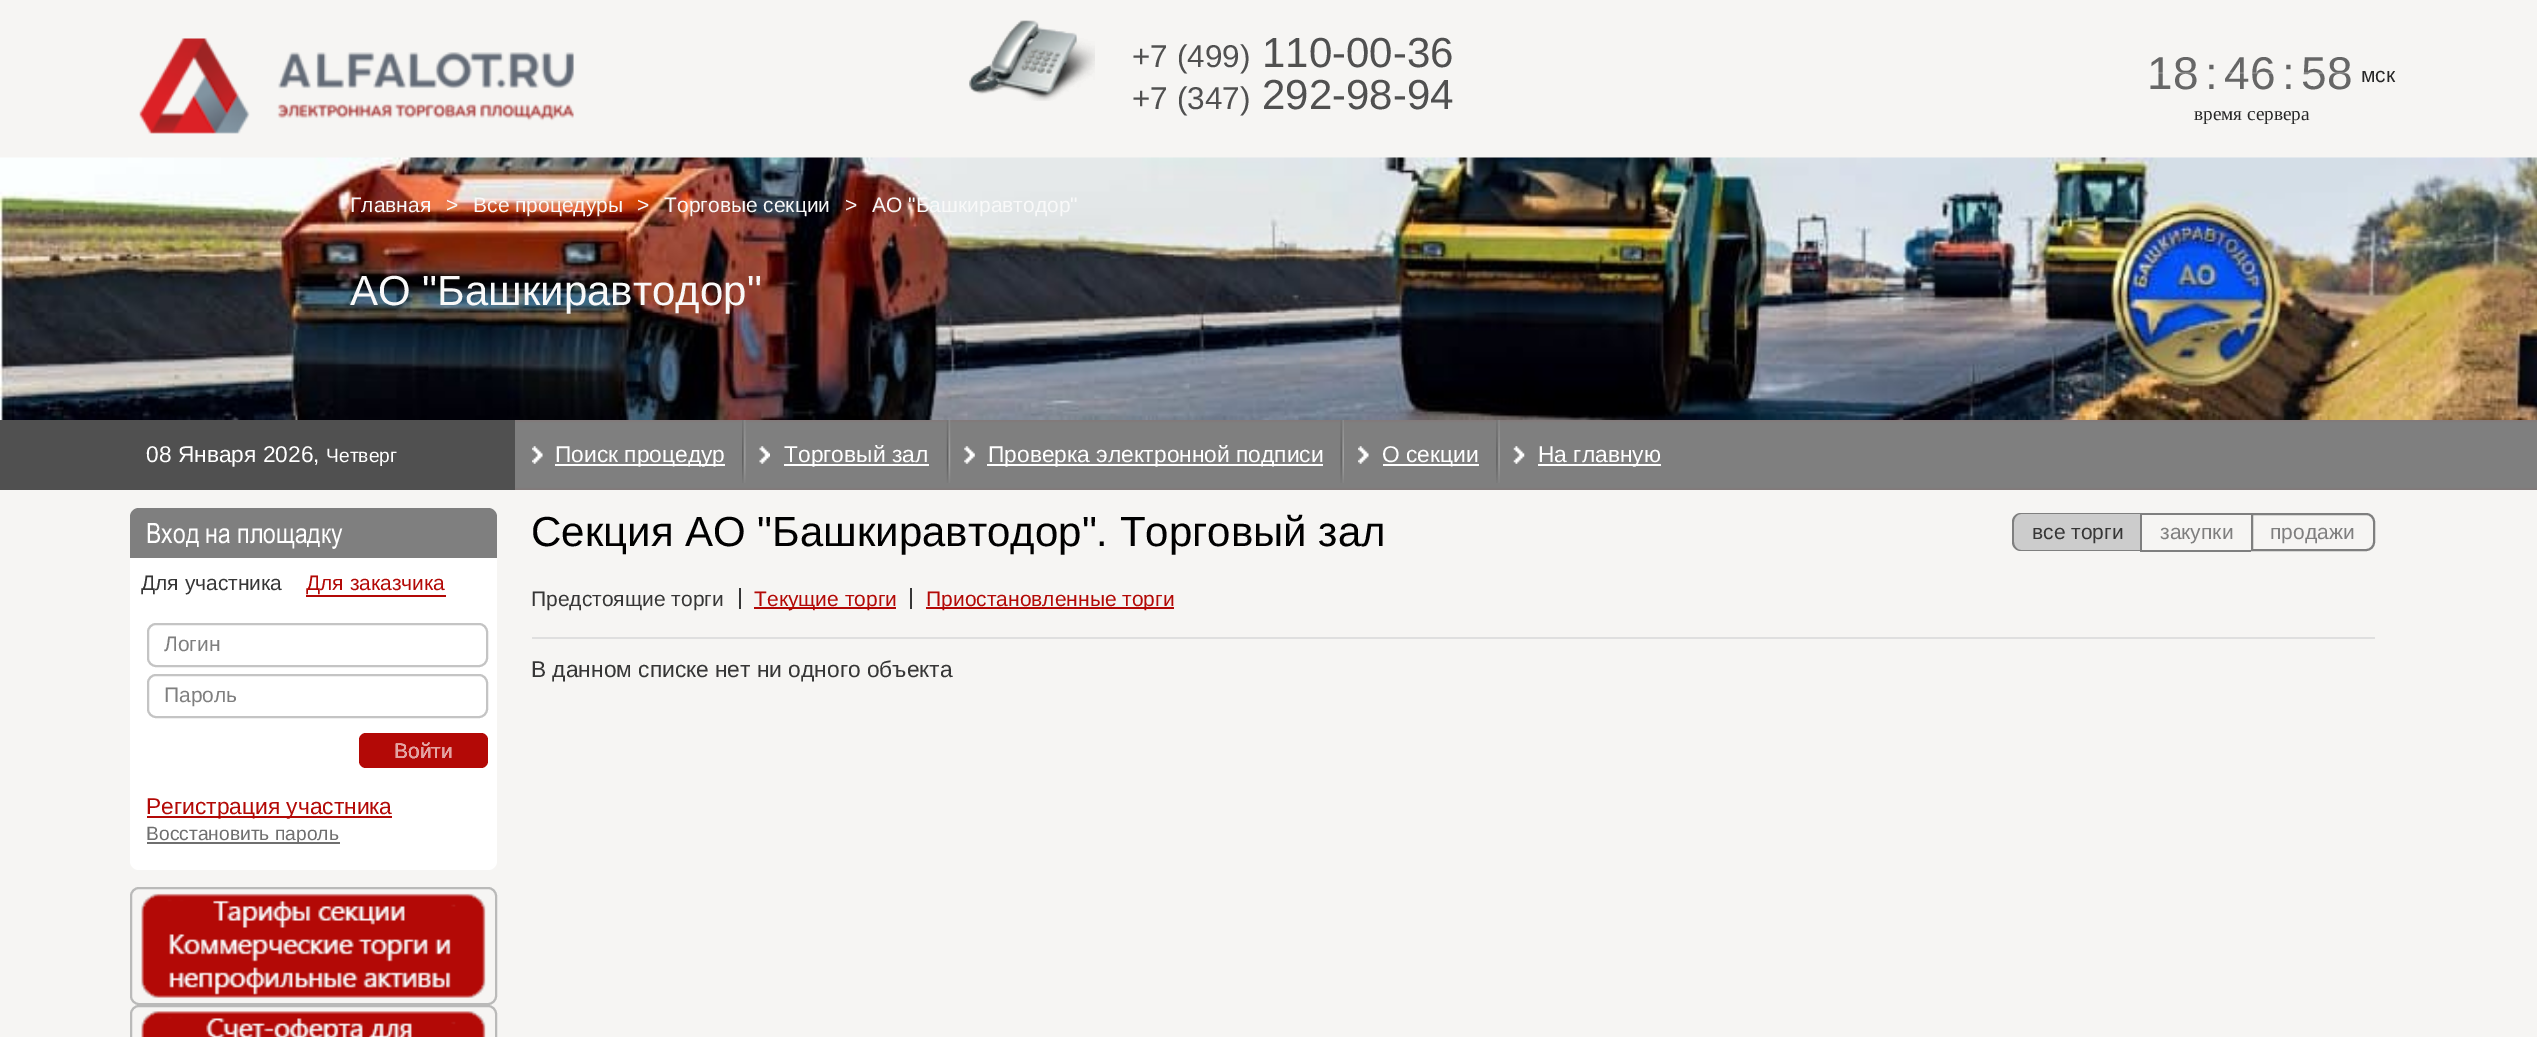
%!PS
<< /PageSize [2537 1037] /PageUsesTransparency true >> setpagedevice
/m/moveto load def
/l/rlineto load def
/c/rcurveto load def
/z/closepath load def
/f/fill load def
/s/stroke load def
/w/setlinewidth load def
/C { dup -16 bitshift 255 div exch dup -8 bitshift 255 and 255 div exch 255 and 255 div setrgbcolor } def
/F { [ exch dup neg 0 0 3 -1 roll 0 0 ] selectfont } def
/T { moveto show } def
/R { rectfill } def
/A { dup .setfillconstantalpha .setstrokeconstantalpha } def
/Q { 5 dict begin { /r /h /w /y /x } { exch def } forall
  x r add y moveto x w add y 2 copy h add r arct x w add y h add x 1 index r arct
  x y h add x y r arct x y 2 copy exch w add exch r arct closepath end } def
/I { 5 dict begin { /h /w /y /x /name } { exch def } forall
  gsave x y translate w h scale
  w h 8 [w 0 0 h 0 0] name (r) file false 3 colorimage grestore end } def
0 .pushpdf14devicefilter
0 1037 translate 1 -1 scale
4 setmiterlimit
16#F6F5F3 C
0 0 2537 1037 R
(1.rgb) 139 38 435 96 I
(3.rgb) 969 20 126 81 I
(2.rgb) 969 20 126 81 I
/LiberationSans-Regular 31.5 F
16#505050 C
(+7 \(499\)) 1132 67 T
/LiberationSans-Regular 42 F
(110-00-36) 1262 67 T
/LiberationSans-Regular 31.5 F
(+7 \(347\)) 1132 109 T
/LiberationSans-Regular 42 F
(292-98-94) 1262 109 T
/LiberationSans-Regular 46 F
16#666666 C
(18) 2147 89 T
0.2 A
16#F6F5F3 C
2158 72 42 2 R
1 A
16#666666 C
(:) 2205 89 T
(46) 2224 89 T
0.2 A
16#F6F5F3 C
2223 72 52 2 R
1 A
16#666666 C
(:) 2282 89 T
(58) 2301 89 T
0.2 A
16#F6F5F3 C
2300 72 52 2 R
/LiberationSans-Regular 21 F
1 A
16#272727 C
(мск) 2361 82 T
/LiberationSerif-Regular 19.25 F
(время сервера) 2194 120 T
(4.rgb) 0 157 2537 263 I
/LiberationSans-Regular 21 F
16#F9F9F9 C
(Главная) 350 212 T
(>) 446 212 T
(Все процедуры) 473 212 T
(>) 637 212 T
(Торговые секции) 664 212 T
(>) 845 212 T
(АО "Башкиравтодор") 872 212 T
/LiberationSans-Regular 42 F
(АО "Башкиравтодор") 350 305 T
(5.rgb) 515 420 2022 70 I
16#505050 C
0 420 515 70 R
/LiberationSans-Regular 22.75 F
16#FFFFFF C
(08 Января 2026,) 146 462 T
/LiberationSans-Regular 19.25 F
(Четверг) 326 462 T
(6.rgb) 532 446 11 18 I
555 464 170 2 R
/LiberationSans-Regular 22.75 F
(Поиск процедур) 555 462 T
(7.rgb) 742 420 4 63 I
(8.rgb) 759 446 11 18 I
784 464 145 2 R
(Торговый зал) 784 462 T
(9.rgb) 946 420 5 63 I
(10.rgb) 964 446 11 18 I
987 464 336 2 R
(Проверка электронной подписи) 988 462 T
(11.rgb) 1340 420 4 63 I
(6.rgb) 1358 446 11 18 I
1383 464 96 2 R
(О секции) 1382 462 T
(12.rgb) 1496 420 4 63 I
(13.rgb) 1513 446 12 18 I
1538 464 123 2 R
(На главную) 1538 462 T
16#7F7F7F C
139 508 m 349 0 l 5 0 9 4 9 9 c 0 41 l -367 0 l 0 -41 l 0 -5 4 -9 9 -9 c z f
/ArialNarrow-Regular 28 F
16#FFFFFF C
(Вход на площадку) 146 543 T
130 558 367 39 R
/LiberationSans-Regular 21 F
16#363636 C
(Для участника) 141 590 T
16#B30906 C
306 595 140 2 R
(Для заказчика) 306 590 T
16#FFFFFF C
130 597 m 367 0 l 0 264 l 0 5 -4 9 -9 9 c -349 0 l -5 0 -9 -4 -9 -9 c z f
16#C4C4C4 C
2 w
148 624 339 42 8 Q s
16#7F7F7F C
(Логин) 164 651 T
16#C4C4C4 C
148 675 339 42 8 Q s
16#7F7F7F C
(Пароль) 164 702 T
16#B30906 C
359 733 129 35 7 Q f
16#FFFFFF C
(Войти) 394 758 T
16#E2A2A0 C
(Войти) 394 758 T
16#B30906 C
147 816 245 2 R
/LiberationSans-Regular 22.75 F
(Регистрация участника) 146 814 T
16#6F6F6F C
147 842 193 2 R
/LiberationSans-Regular 19.25 F
(Восстановить пароль) 146 840 T
16#BABAB9 C
131 888 365 116 8 Q s
(14.rgb) 141 893 345 105 I
131 1006 365 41 8 Q s
(15.rgb) 141 1011 345 26 I
/LiberationSans-Regular 42 F
16#000000 C
(Секция АО "Башкиравтодор". Торговый зал) 531 546 T
16#CCCCCC C
2022 513 m 118 0 l 0 38 l -118 0 l -5 0 -9 -4 -9 -9 c 0 -20 l 0 -5 4 -9 9 -9 c z f
16#7F7F7F C
2021 513 m 119 0 l 0 38 l -119 0 l -5 0 -9 -4 -9 -9 c 0 -20 l 0 -5 4 -9 9 -9 c z 2021 514 m 119 0 l 0 36 l -119 0 l -4 0 -7 -4 -7 -8 c 0 -20 l 0 -4 3 -8 7 -8 c z eofill
/LiberationSans-Regular 21 F
16#363636 C
(все торги) 2032 539 T
16#7F7F7F C
2140 513 111 2 R
2140 550 111 2 R
2140 513 2 38 R
(закупки) 2160 539 T
2252 514 m 114 0 l 4.5 0 8 3.5 8 8 c 0 20 l 0 4.5 -3.5 8 -8 8 c -114 0 l z s
(продажи) 2270 539 T
16#DFDFDF C
532 637 1843 2 R
16#363636 C
739 588 2 21 R
(Предстоящие торги) 531 606 T
910 588 2 21 R
16#B30906 C
754 607 142 2 R
(Текущие торги) 754 606 T
926 607 248 2 R
(Приостановленные торги) 926 606 T
/LiberationSans-Regular 22.75 F
16#363636 C
(В данном списке нет ни одного объекта) 531 677 T
.poppdf14devicefilter showpage
